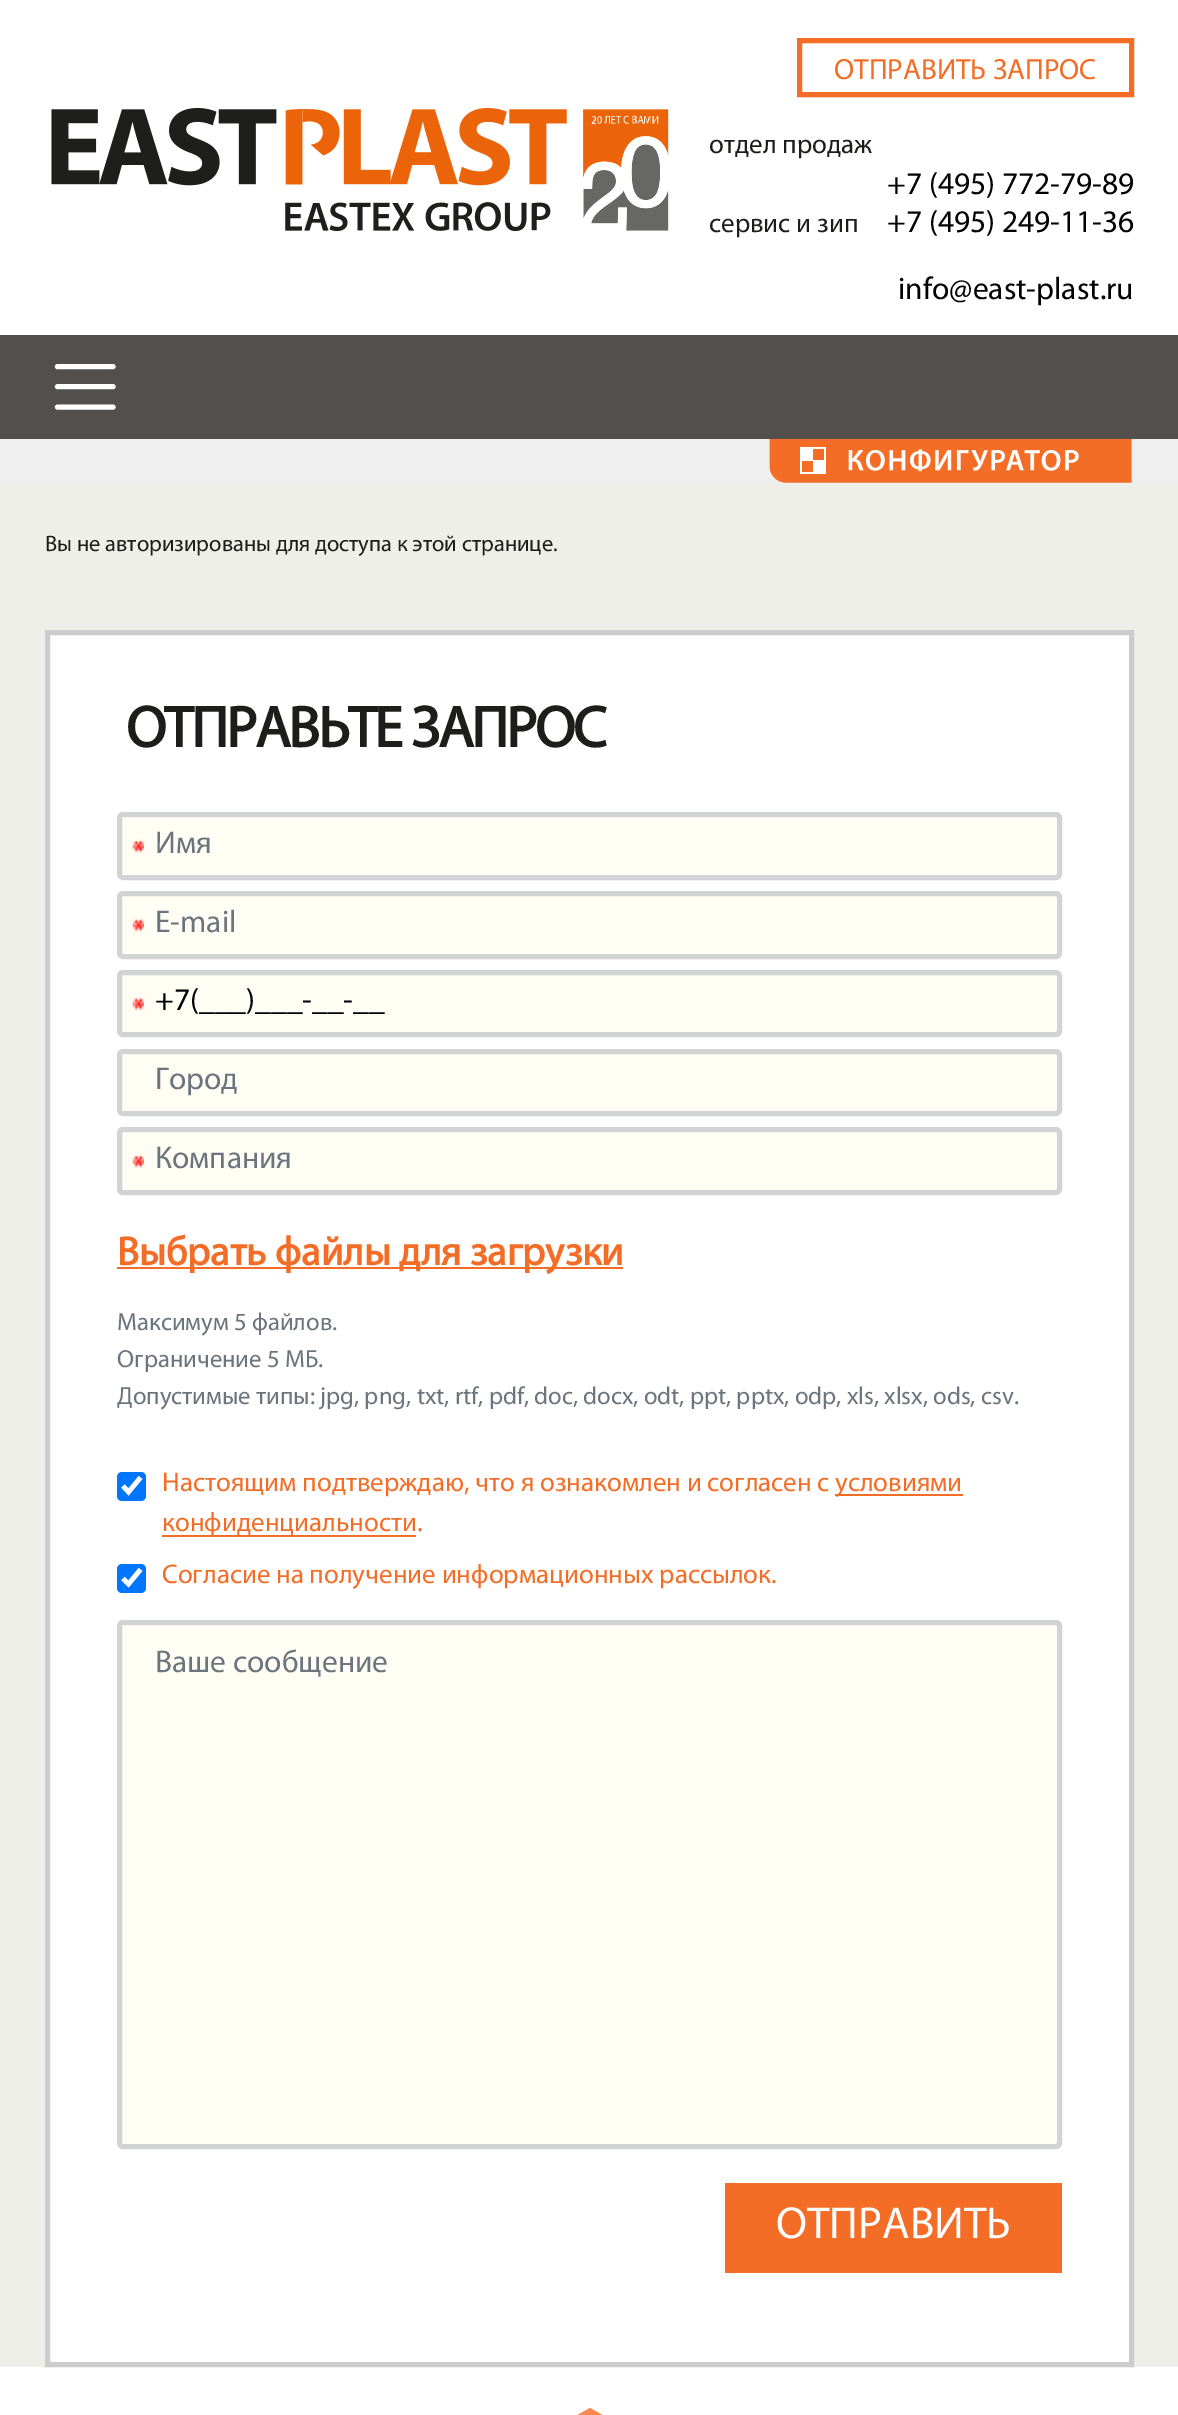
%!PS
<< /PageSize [1178 2415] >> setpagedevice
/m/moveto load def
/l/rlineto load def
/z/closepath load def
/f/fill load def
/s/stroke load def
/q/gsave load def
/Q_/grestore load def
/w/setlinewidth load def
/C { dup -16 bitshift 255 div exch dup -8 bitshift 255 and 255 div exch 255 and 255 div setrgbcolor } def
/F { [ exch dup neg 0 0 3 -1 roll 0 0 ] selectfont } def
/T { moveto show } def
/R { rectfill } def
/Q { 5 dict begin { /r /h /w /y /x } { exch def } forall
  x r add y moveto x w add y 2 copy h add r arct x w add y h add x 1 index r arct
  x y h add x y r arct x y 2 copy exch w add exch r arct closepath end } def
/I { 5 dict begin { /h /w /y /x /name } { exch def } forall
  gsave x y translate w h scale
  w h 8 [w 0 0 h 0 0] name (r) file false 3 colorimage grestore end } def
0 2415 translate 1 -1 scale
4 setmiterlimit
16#FFFFFF C
0 0 1178 2415 R
(1.rgb) 51 108 618 124 I
16#F36D26 C
5 w
799.5 40.5 332 54 rectstroke
/Myriad-Regular 29.25 F
(ОТПРАВИТЬ ЗАПРОС) 834 79 T
/Myriad-Regular 27 F
16#1D1D1B C
(отдел продаж) 709 153 T
/Myriad-Regular 31.5 F
16#010101 C
(+7 \(495\) 772-79-89) 887 194 T
/Myriad-Regular 27 F
16#1D1D1B C
(сервис и зип) 709 232 T
/Myriad-Regular 31.5 F
16#010101 C
(+7 \(495\) 249-11-36) 887 232 T
(info@east-plast.ru) 898 299 T
16#524F4D C
0 335 1178 104 R
16#FFFFFF C
5.1 w
1 setlinecap
57.5 366.5 m 55.5 0 l 57.5 386.5 m 55.5 0 l 57.5 407 m 55.5 0 l s
16#F0EFF0 C
0 439 1178 45 R
(2.rgb) 769 439 363 44 I
16#EFEFEA C
0 484 1178 1883 R
/Myriad-Regular 22.5 F
16#1D1D1B C
(Вы не авторизированы для доступа к этой странице.) 45 551 T
16#FFFFFF C
47.5 632.5 m 1084 0 l 0 1732 l -1084 0 l z q f Q_
16#CCCCCC C
5 w
0 setlinecap
s
/Myriad-Bold 58.5 F
16#1D1D1B C
126 747 m -2.25 0 (ОТПРАВЬТЕ ЗАПРОС) ashow
16#FFFEF4 C
117 812 945 68 6 Q f
(3.rgb) 132 839 12 14 I
16#D2D3D4 C
119.5 814.5 940 63 3.5 Q s
/Myriad-Regular 31.5 F
16#6C757D C
(Имя) 155 853 T
16#FFFEF4 C
117 891 945 68 6 Q f
(4.rgb) 132 918 12 14 I
16#D2D3D4 C
119.5 893.5 940 63 3.5 Q s
16#6C757D C
(E-mail) 155 932 T
16#FFFEF4 C
117 970 945 67 6 Q f
(5.rgb) 132 997 12 14 I
16#D2D3D4 C
119.5 972.5 940 62 3.5 Q s
16#010101 C
(+7\(___\)___-__-__) 155 1010 T
16#FFFEF4 C
119.5 1051.5 940 62 3.5 Q q f Q_
16#D2D3D4 C
s
16#6C757D C
(Город) 155 1089 T
16#FFFEF4 C
117 1127 945 68 6 Q f
(6.rgb) 132 1154 12 14 I
16#D2D3D4 C
119.5 1129.5 940 63 3.5 Q s
16#6C757D C
(Компания) 155 1168 T
16#F36D26 C
117 1267 506 2 R
/Myriad-Bold 40.5 F
(Выбрать файлы для загрузки) 117 1265 T
/Myriad-Regular 24.75 F
16#6C757D C
(Максимум 5 файлов.) 117 1330 T
(Ограничение 5 МБ.) 117 1367 T
(Допустимые типы: jpg, png, txt, rtf, pdf, doc, docx, odt, ppt, pptx, odp, xls, xlsx, ods, csv.) 117 1404 T
16#0075FF C
117 1472 29 29 5 Q f
16#FFFFFF C
4.7 w
123 1486 m 5.5 6 l 12 -14.5 l s
/Myriad-Regular 27 F
16#F36D26 C
(Настоящим подтверждаю, что я ознакомлен и согласен с) 162 1491 T
835 1494 128 2 R
(условиями) 835 1491 T
162 1535 254 2 R
(конфиденциальности.) 162 1531 T
16#0075FF C
117 1564 29 29 5 Q f
16#FFFFFF C
123 1578.5 m 5.5 5.5 l 12 -14.5 l s
16#F36D26 C
(Согласие на получение информационных рассылок.) 162 1583 T
16#FFFEF4 C
119.5 1622.5 940 524 3.5 Q q f Q_
16#D2D3D4 C
5 w
s
/Myriad-Regular 31.5 F
16#6C757D C
(Ваше сообщение) 155 1672 T
16#F36D26 C
725 2183 337 90 R
/Myriad-Regular 45 F
16#FFFFFF C
(ОТПРАВИТЬ) 776 2238 T
16#F58A51 C
629 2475 m -39 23 l -39 -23 l 0 -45 l 39 -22 l 39 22 l z f
showpage
